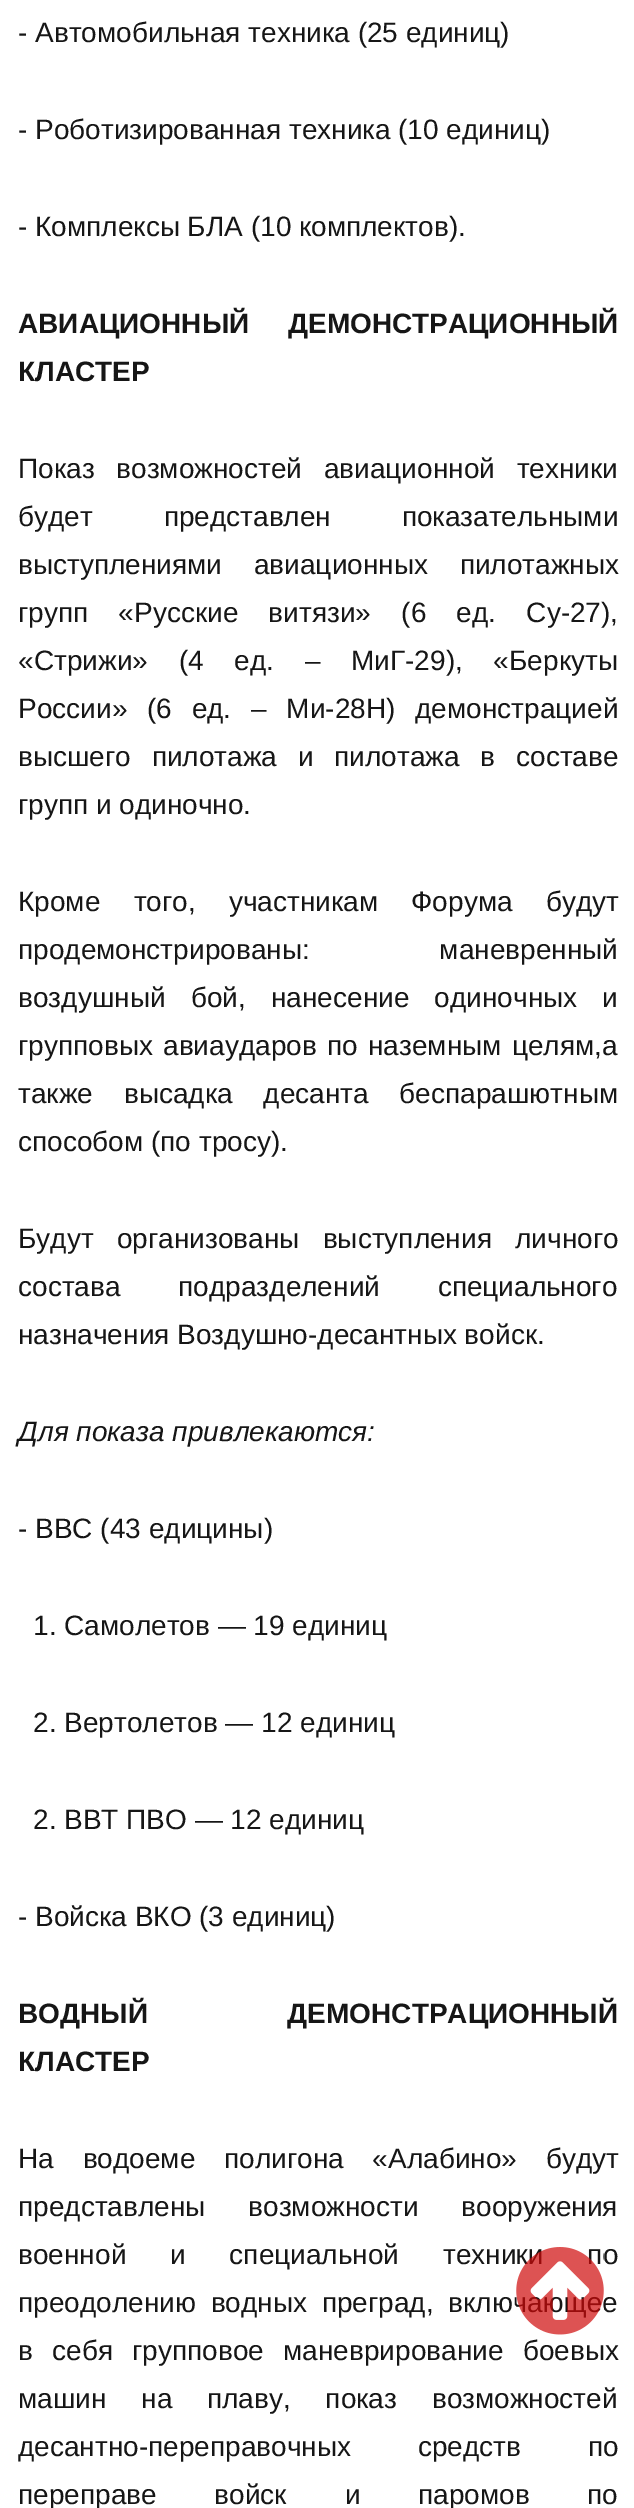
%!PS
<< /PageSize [634 2508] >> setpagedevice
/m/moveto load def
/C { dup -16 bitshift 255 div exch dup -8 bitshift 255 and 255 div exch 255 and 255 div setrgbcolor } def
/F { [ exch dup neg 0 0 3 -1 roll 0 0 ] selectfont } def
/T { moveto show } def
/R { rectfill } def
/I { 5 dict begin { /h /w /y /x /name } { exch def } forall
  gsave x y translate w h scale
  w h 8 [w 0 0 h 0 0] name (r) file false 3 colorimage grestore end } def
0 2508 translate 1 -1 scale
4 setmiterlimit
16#FFFFFF C
0 0 634 2508 R
/LiberationSans-Regular 28 F
16#161616 C
(- Автомобильная техника \(25 единиц\)) 18 42 T
(- Роботизированная техника \(10 единиц\)) 18 139 T
(- Комплексы БЛА \(10 комплектов\).) 18 236 T
/LiberationSans-Bold 28 F
18 333 m 31 0 32 (АВИАЦИОННЫЙ ДЕМОНСТРАЦИОННЫЙ) widthshow
(КЛАСТЕР) 18 381 T
/LiberationSans-Regular 28 F
18 478 m 14 0 32 (Показ возможностей авиационной техники) widthshow
18 526 m 63 0 32 (будет представлен показательными) widthshow
18 574 m 24 0 32 (выступлениями авиационных пилотажных) widthshow
18 622 m 22.5 0 32 (групп «Русские витязи» \(6 ед. Су-27\),) widthshow
18 670 m 23 0 32 («Стрижи» \(4 ед. – МиГ-29\), «Беркуты) widthshow
18 718 m 12 0 32 (России» \(6 ед. – Ми-28Н\) демонстрацией) widthshow
18 766 m 13 0 32 (высшего пилотажа и пилотажа в составе) widthshow
(групп и одиночно.) 18 814 T
18 911 m 25.5 0 32 (Кроме того, участникам Форума будут) widthshow
18 959 m 122 0 32 (продемонстрированы: маневренный) widthshow
18 1007 m 17.5 0 32 (воздушный бой, нанесение одиночных и) widthshow
18 1055 m 2.5 0 32 (групповых авиаударов по наземным целям,а) widthshow
18 1103 m 23 0 32 (также высадка десанта беспарашютным) widthshow
(способом \(по тросу\).) 18 1151 T
18 1248 m 15.5 0 32 (Будут организованы выступления личного) widthshow
18 1296 m 50 0 32 (состава подразделений специального) widthshow
(назначения Воздушно-десантных войск.) 18 1344 T
/LiberationSans-Italic 28 F
(Для показа привлекаются:) 18 1441 T
/LiberationSans-Regular 28 F
(- ВВС \(43 едицины\)) 18 1538 T
(1. Самолетов — 19 единиц) 33 1635 T
(2. Вертолетов — 12 единиц) 33 1732 T
(2. ВВТ ПВО — 12 единиц) 33 1829 T
(- Войска ВКО \(3 единиц\)) 18 1926 T
/LiberationSans-Bold 28 F
18 2023 m 132 0 32 (ВОДНЫЙ ДЕМОНСТРАЦИОННЫЙ) widthshow
(КЛАСТЕР) 18 2071 T
/LiberationSans-Regular 28 F
18 2168 m 21 0 32 (На водоеме полигона «Алабино» будут) widthshow
18 2216 m 35 0 32 (представлены возможности вооружения) widthshow
18 2264 m 36 0 32 (военной и специальной техники по) widthshow
18 2312 m 7 0 32 (преодолению водных преград, включающее) widthshow
18 2360 m 11.5 0 32 (в себя групповое маневрирование боевых) widthshow
18 2408 m 27 0 32 (машин на плаву, показ возможностей) widthshow
18 2456 m 59 0 32 (десантно-переправочных средств по) widthshow
18 2504 m 50 0 32 (переправе войск и паромов по) widthshow
(1.rgb) 516 2247 88 88 I
showpage
